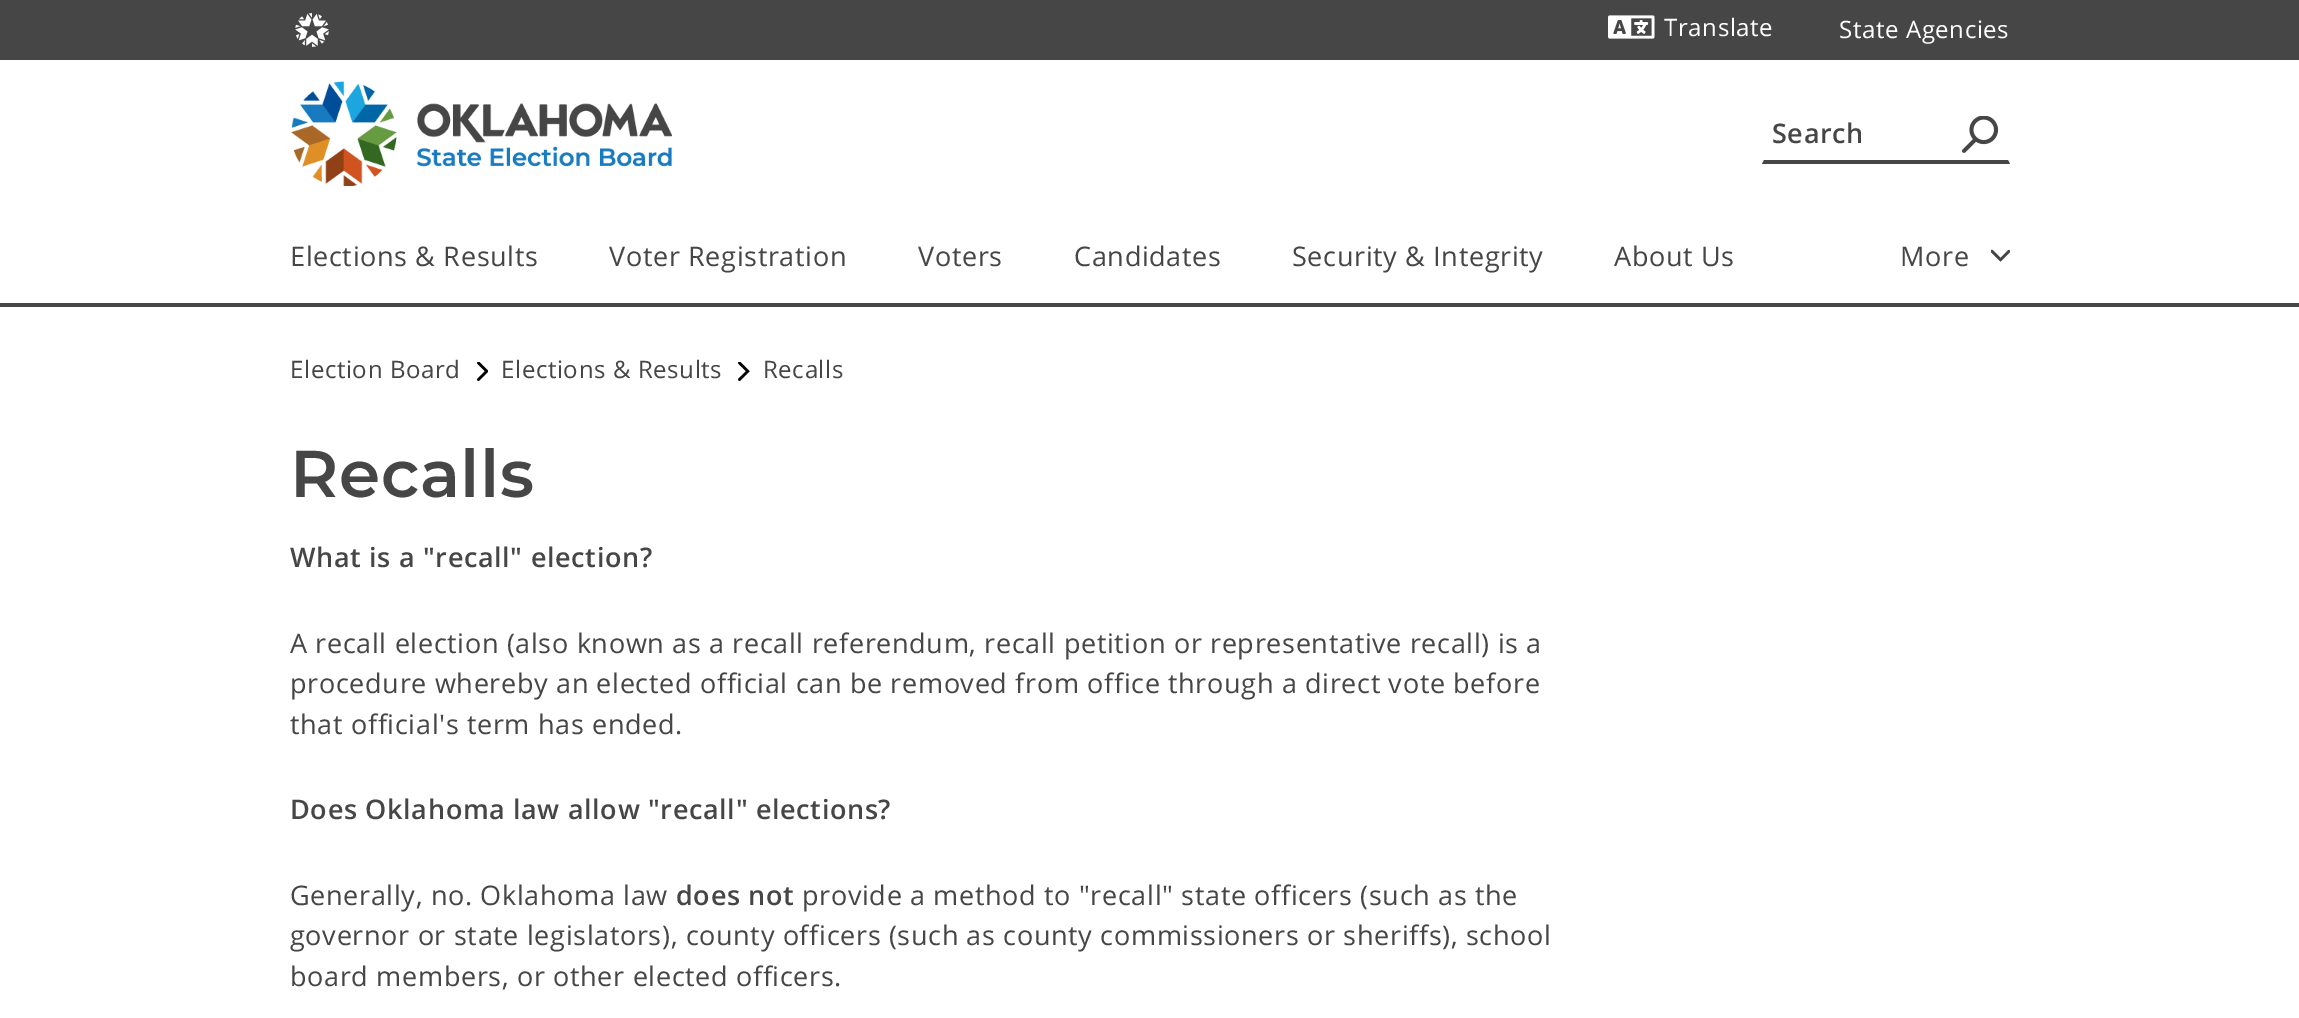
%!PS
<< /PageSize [2299 1018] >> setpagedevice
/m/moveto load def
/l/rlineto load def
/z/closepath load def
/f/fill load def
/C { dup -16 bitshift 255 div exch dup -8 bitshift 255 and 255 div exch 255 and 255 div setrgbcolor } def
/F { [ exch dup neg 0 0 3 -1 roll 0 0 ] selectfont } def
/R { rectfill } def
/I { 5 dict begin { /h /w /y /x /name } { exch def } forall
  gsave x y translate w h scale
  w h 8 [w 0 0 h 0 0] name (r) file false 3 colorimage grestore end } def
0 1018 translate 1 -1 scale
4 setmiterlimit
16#FFFFFF C
0 0 2299 1018 R
16#464646 C
0 0 2299 60 R
(1.rgb) 295 13 34 34 I
(2.rgb) 1608 15 47 24 I
/OpenSans-Regular 24 F
16#FFFFFF C
1664 36 m .6 0 (Translate) ashow
1839 38 m .6 0 (State Agencies) ashow
16#464646 C
0 303 2299 4 R
(3.rgb) 291 81 381 105 I
2010 164 m -248 0 l 2 -4 l 244 0 l z f
/OpenSans-SemiBold 27 F
1772 143 m .65 0 (Search) ashow
(4.rgb) 1962 116 37 37 I
/OpenSans-Regular 27 F
290 266 m .65 0 (Elections & Results) ashow
609 266 m .65 0 (Voter Registration) ashow
918 266 m .65 0 (Voters) ashow
1074 266 m .65 0 (Candidates) ashow
1292 266 m .65 0 (Security & Integrity) ashow
1614 266 m .65 0 (About Us) ashow
1900 266 m .65 0 (More) ashow
(5.rgb) 1991 249 19 13 I
/OpenSans-Regular 24 F
290 378 m .6 0 (Election Board) ashow
(6.rgb) 477 362 11 19 I
501 378 m .6 0 (Elections & Results) ashow
(7.rgb) 738 362 12 19 I
763 378 m .6 0 (Recalls) ashow
/Montserrat-SemiBold 66 F
290 497 m .65 0 (Recalls) ashow
/OpenSans-SemiBold 27 F
290 567 m .65 0 (What is a "recall" election?) ashow
/OpenSans-Regular 27 F
290 653 m .65 0 (A recall election \(also known as a recall referendum, recall petition or representative recall\) is a) ashow
290 693 m .65 0 (procedure whereby an elected official can be removed from office through a direct vote before) ashow
290 734 m .65 0 (that official's term has ended.) ashow
/OpenSans-SemiBold 27 F
290 819 m .65 0 (Does Oklahoma law allow "recall" elections?) ashow
/OpenSans-Regular 27 F
290 905 m .65 0 (Generally, no. Oklahoma law) ashow
/OpenSans-SemiBold 27 F
676 905 m .65 0 (does not) ashow
/OpenSans-Regular 27 F
802 905 m .65 0 (provide a method to "recall" state officers \(such as the) ashow
290 945 m .65 0 (governor or state legislators\), county officers \(such as county commissioners or sheriffs\), school) ashow
290 986 m .65 0 (board members, or other elected officers.) ashow
showpage
